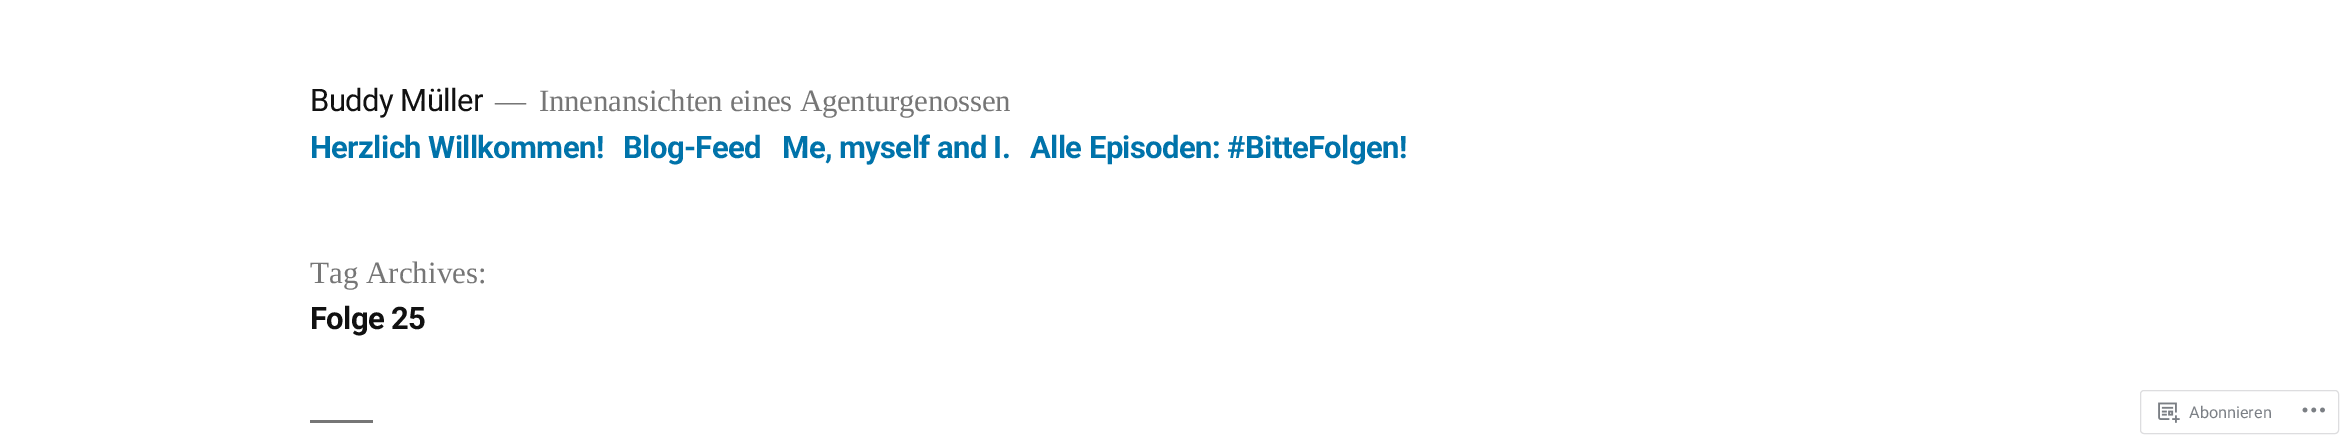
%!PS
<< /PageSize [2351 446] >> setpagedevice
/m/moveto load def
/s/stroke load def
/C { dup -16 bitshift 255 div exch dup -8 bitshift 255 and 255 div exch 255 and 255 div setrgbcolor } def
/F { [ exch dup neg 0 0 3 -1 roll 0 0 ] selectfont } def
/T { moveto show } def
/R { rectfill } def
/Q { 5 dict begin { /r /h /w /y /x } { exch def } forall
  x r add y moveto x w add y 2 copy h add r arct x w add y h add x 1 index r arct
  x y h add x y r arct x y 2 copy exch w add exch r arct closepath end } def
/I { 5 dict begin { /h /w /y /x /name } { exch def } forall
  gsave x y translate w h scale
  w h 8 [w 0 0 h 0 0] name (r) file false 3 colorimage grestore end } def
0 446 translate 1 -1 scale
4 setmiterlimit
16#FFFFFF C
0 0 2351 446 R
/Roboto-Regular 31 F
16#111111 C
310 111 m -.6 0 (Buddy Müller) ashow
/LiberationSerif-Regular 31 F
16#767676 C
495 111 m -.3 0 (—) ashow
539 111 m -.3 0 (Innenansichten eines Agenturgenossen) ashow
/Roboto-Bold 31 F
16#0073AA C
310 158 m -.6 0 (Herzlich Willkommen!) ashow
623 158 m -.6 0 (Blog-Feed) ashow
782 158 m -.6 0 (Me, myself and I.) ashow
1030 158 m -.6 0 (Alle Episoden: #BitteFolgen!) ashow
/LiberationSerif-Regular 31 F
16#767676 C
(Tag Archives:) 310 283 T
/Roboto-Bold 31 F
16#111111 C
310 329 m -.6 0 (Folge 25) ashow
16#767676 C
310 420 63 3 R
16#DDDDDF C
2140.5 390.5 198 43 3.5 Q s
(1.rgb) 2158 402 22 21 I
/Roboto-Regular 16.25 F
16#7B7F85 C
(Abonnieren) 2189 418 T
(2.rgb) 2302 407 23 6 I
showpage
